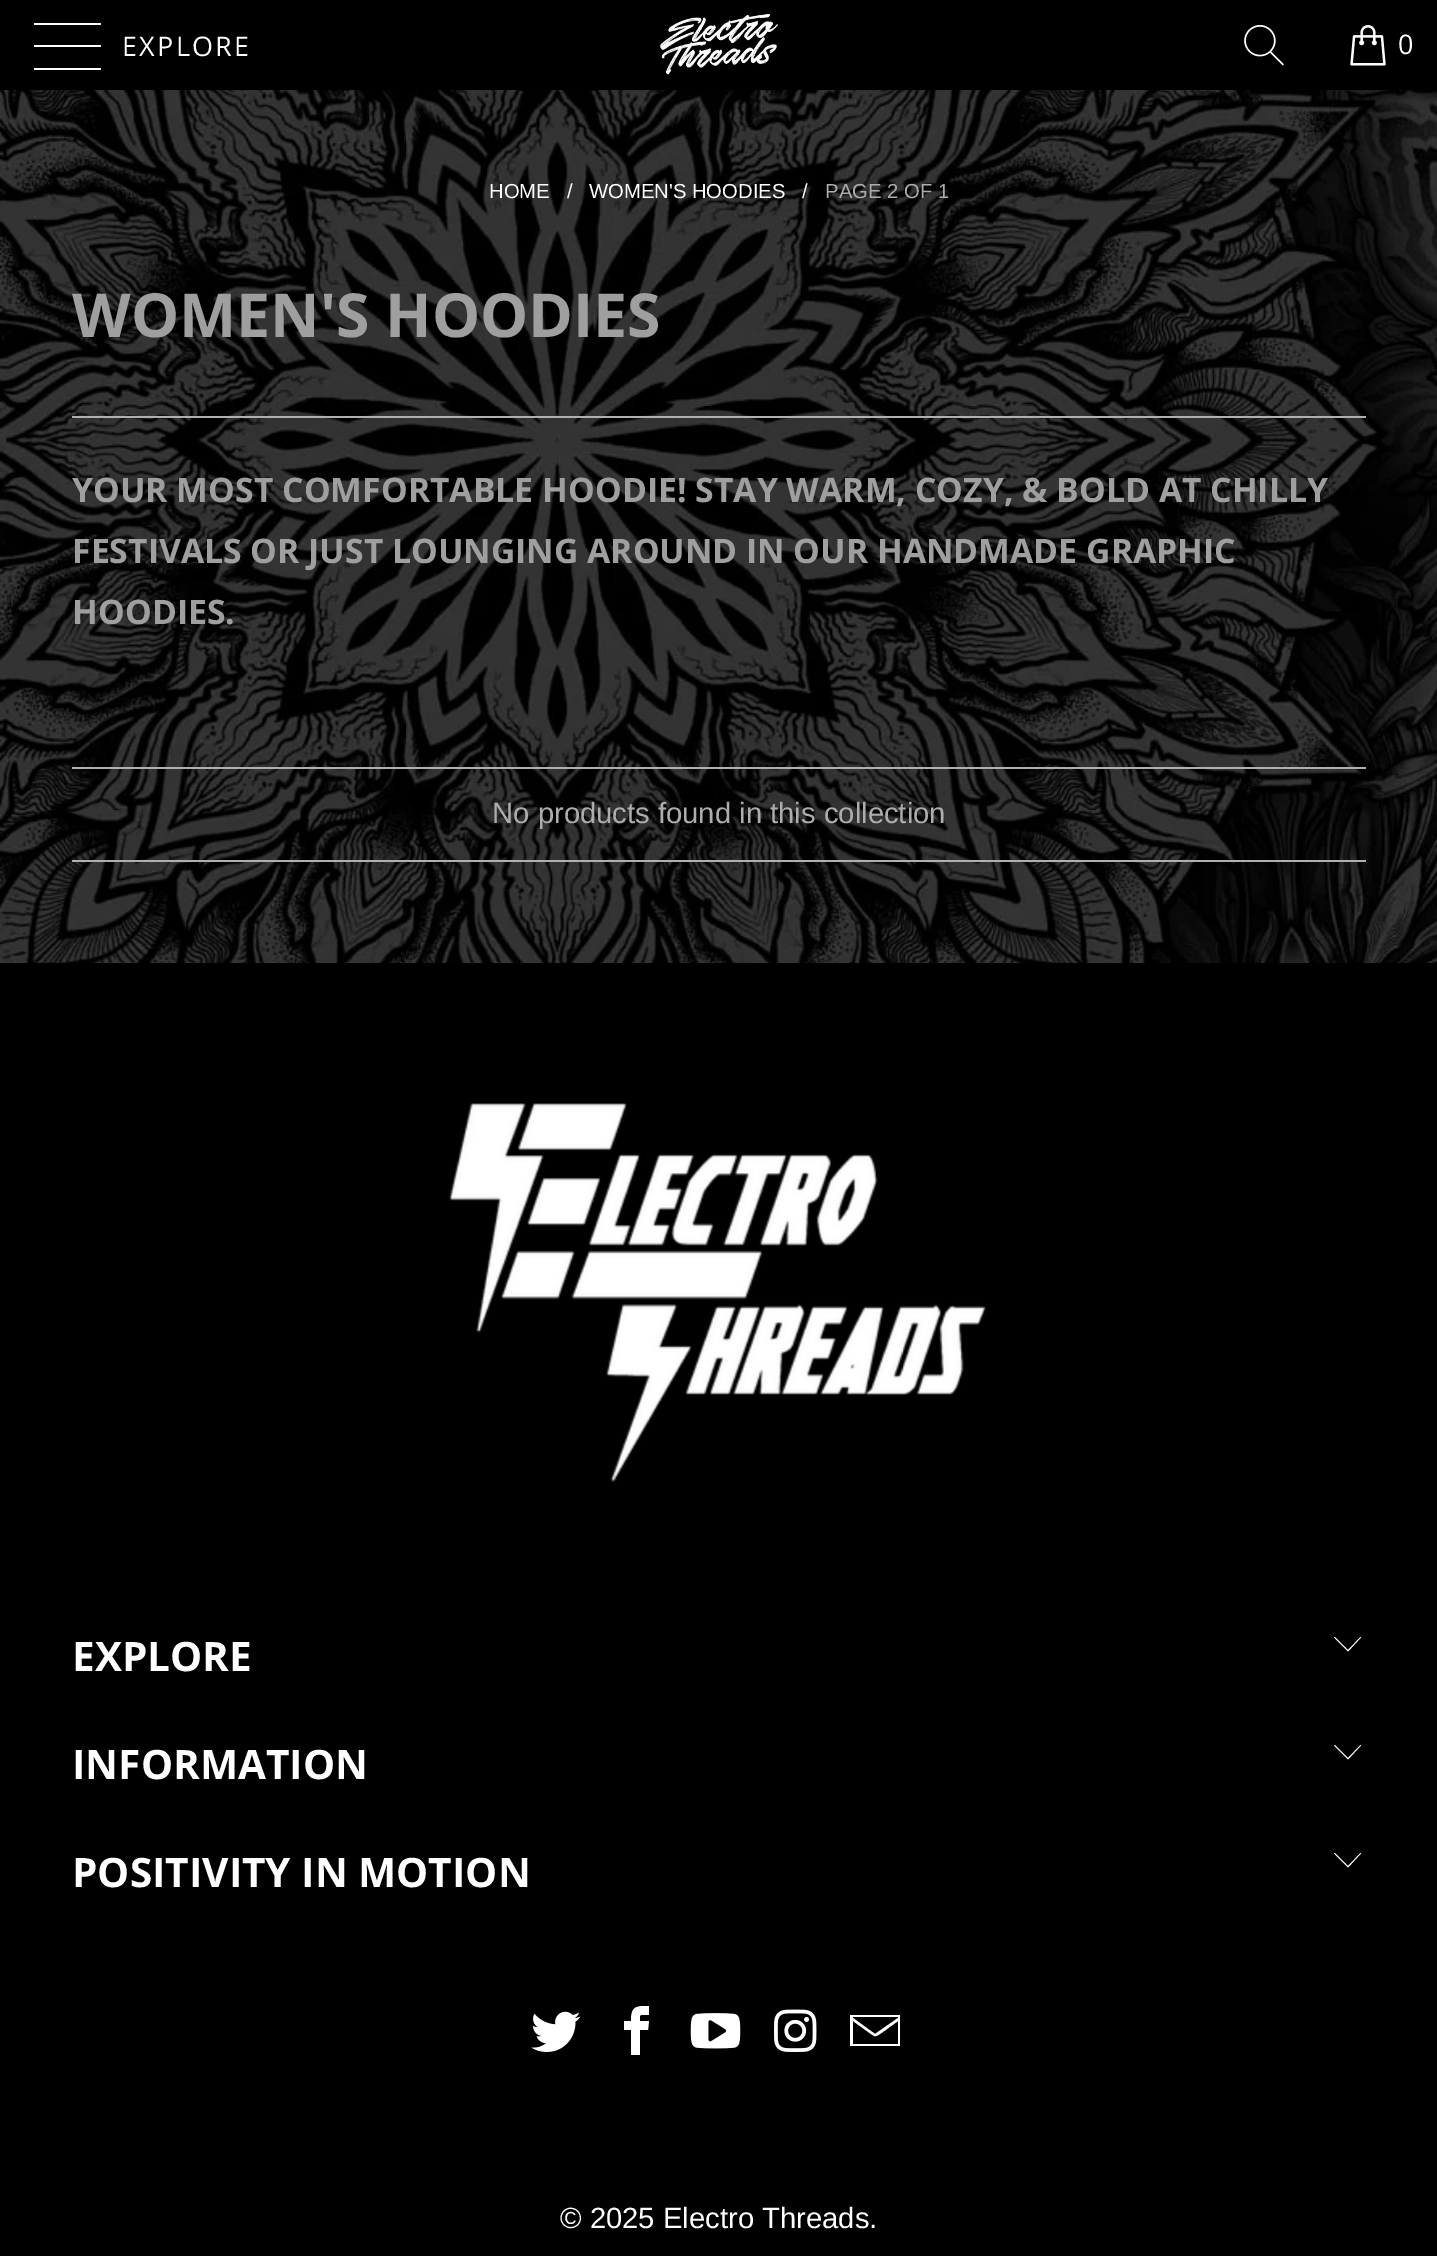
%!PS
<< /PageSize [1437 2256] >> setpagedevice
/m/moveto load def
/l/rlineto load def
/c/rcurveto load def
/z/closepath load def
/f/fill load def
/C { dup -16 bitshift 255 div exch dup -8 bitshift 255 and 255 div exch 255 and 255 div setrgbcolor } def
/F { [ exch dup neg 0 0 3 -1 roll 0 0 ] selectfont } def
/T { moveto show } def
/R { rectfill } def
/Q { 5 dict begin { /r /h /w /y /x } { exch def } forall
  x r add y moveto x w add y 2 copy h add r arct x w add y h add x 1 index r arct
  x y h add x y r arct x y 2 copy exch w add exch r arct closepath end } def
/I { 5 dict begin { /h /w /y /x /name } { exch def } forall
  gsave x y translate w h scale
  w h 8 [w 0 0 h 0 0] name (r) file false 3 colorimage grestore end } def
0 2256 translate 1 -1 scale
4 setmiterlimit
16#FFFFFF C
0 0 1437 2256 R
(1.rgb) 0 90 1437 873 I
16#000000 C
0 0 1437 90 R
16#FFFFFF C
34 23 67 2 1 Q f
34 45 67 2 1 Q f
34 68 67 2 1 Q f
/OpenSans-Regular 27 F
122 56 m 2.25 0 (EXPLORE) ashow
(2.rgb) 660 14 118 61 I
(3.rgb) 1244 24 40 42 I
(4.rgb) 1350 25 36 41 I
1398 54 m 2.25 0 (0) ashow
/LiberationSans-Regular 20.25 F
(HOME) 489 198 T
(/) 567 198 T
(WOMEN'S HOODIES) 589 198 T
(/) 802 198 T
16#AFACAC C
(PAGE 2 OF 1) 825 198 T
/OpenSans-Bold 60.75 F
16#9F9F9F C
(WOMEN'S HOODIES) 72 337 T
16#B1B0B0 C
72 416 1294 2 R
/OpenSans-Bold 33.75 F
16#9F9F9F C
(YOUR MOST COMFORTABLE HOODIE! STAY WARM, COZY, & BOLD AT CHILLY) 72 502 T
(FESTIVALS OR JUST LOUNGING AROUND IN OUR HANDMADE GRAPHIC) 72 563 T
(HOODIES.) 72 624 T
16#B1B0B0 C
72 767 1294 2 R
72 860 1294 2 R
/LiberationSans-Regular 29.25 F
16#AFACAC C
(No products found in this collection) 492 823 T
16#000000 C
0 963 1437 1293 R
(5.rgb) 449 1103 537 380 I
/OpenSans-Bold 40.5 F
16#FFFFFF C
(EXPLORE) 72 1671 T
1348 1651.5 m -14 -14 l 1 -.5 l 13 13 l 12.5 -13 l .5 .5 l z f
(INFORMATION) 72 1779 T
1348 1759.5 m -14 -14 l 1 -.5 l 13 13 l 12.5 -13 l .5 .5 l z f
(POSITIVITY IN MOTION) 72 1887 T
1348 1867.5 m -14 -14 l 1 -.5 l 13 13 l 12.5 -13 l .5 .5 l z f
(6.rgb) 531 2011 50 41 I
641 2015 m 8 0 l 0 -9 l -13 0 -18 0 -18 15 c -7 0 l 0 9 l 7 0 l 0 25 l 9 0 l 0 -25 l 8 0 l 1 -9 l -9 0 l 0 -1 -1 -6 1 -6 c z f
(7.rgb) 690 2013 51 36 I
(8.rgb) 774 2009 43 43 I
850 2015 m 0 31 l 50 0 l 0 -31 l z 898 2017 m 0 1 l -23 16 l -22 -16 l 0 -1 l z 853 2044 m 0 -23 l 18 13 l 5 3 3 3 9 0 c 18 -13 l 0 23 l z f
/LiberationSans-Regular 29.25 F
(© 2025 Electro Threads) 560 2228 T
(.) 869 2228 T
showpage
